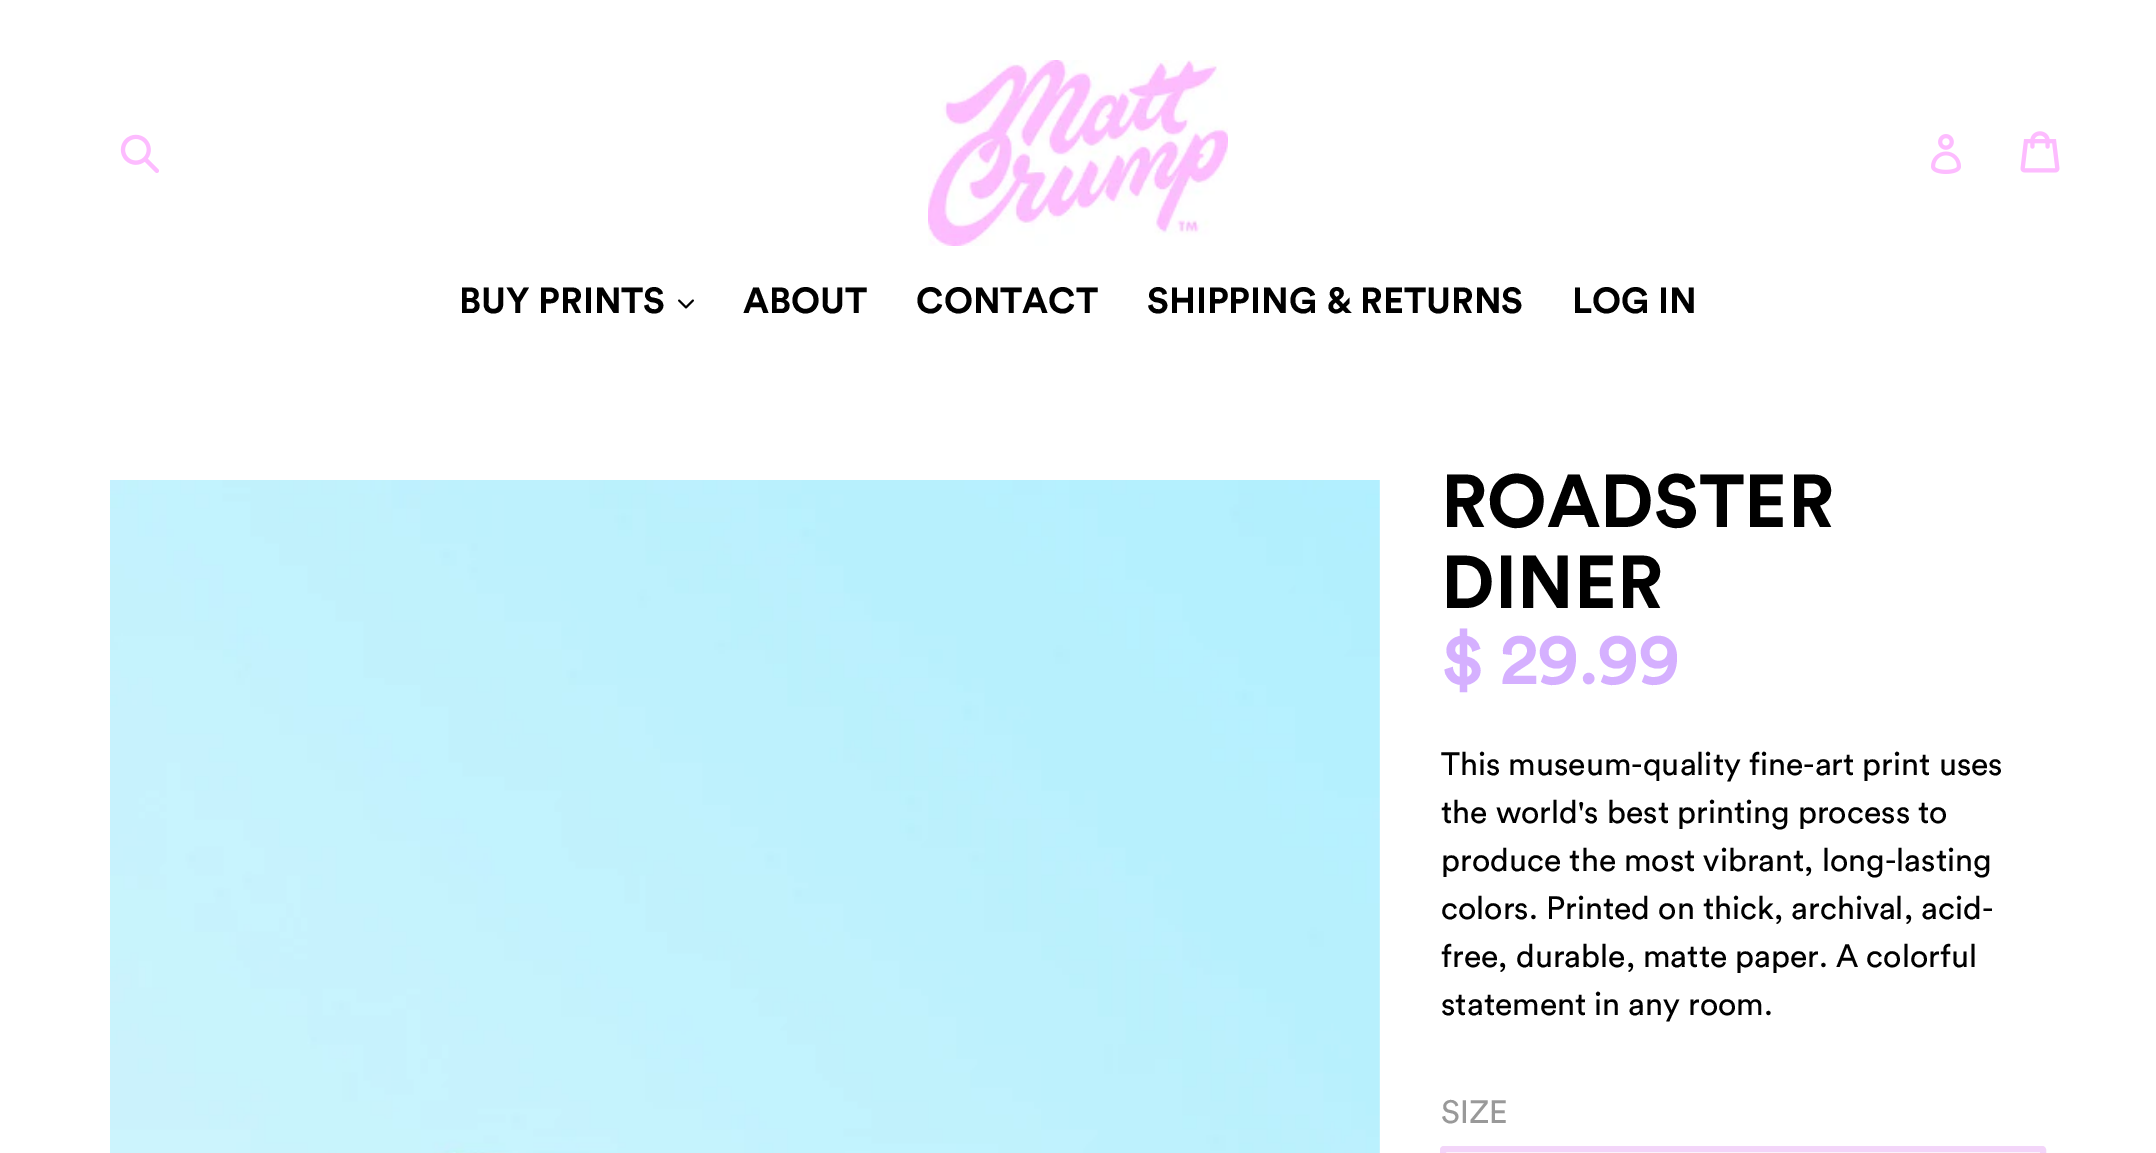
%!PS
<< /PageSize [2156 1153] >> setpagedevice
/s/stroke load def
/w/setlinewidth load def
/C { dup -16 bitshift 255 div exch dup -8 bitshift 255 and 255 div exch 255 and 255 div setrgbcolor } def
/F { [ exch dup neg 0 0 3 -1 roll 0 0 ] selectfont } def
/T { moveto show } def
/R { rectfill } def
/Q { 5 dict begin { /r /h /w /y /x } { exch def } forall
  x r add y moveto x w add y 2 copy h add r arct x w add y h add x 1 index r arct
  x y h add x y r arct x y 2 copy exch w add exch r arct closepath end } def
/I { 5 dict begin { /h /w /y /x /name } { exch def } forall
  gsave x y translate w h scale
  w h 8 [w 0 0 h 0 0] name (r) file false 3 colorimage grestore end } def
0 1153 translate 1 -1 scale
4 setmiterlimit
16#FFFFFF C
0 0 2156 1153 R
(1.rgb) 120 134 39 39 I
(2.rgb) 928 60 300 186 I
(3.rgb) 1931 134 30 40 I
(4.rgb) 2020 131 40 42 I
/Circular-Bold 36 F
16#000000 C
(BUY PRINTS) 459 313 T
(5.rgb) 678 299 16 10 I
(ABOUT) 743 313 T
(CONTACT) 916 313 T
(SHIPPING & RETURNS) 1147 313 T
(LOG IN) 1572 313 T
(6.rgb) 110 480 1270 673 I
/Circular-Bold 74 F
(ROADSTER) 1441 527 T
(DINER) 1441 608 T
/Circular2-Bold 70 F
16#D5B0FF C
($ 29.99) 1441 684 T
/Circular-Regular 32 F
16#000000 C
(This museum-quality fine-art print uses) 1441 775 T
(the world's best printing process to) 1441 823 T
(produce the most vibrant, long-lasting) 1441 871 T
(colors. Printed on thick, archival, acid-) 1441 919 T
(free, durable, matte paper. A colorful) 1441 967 T
(statement in any room.) 1441 1015 T
16#999999 C
(SIZE) 1441 1123 T
16#F3D5F9 C
6 w
1443 1149 600 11 1 Q s
showpage
